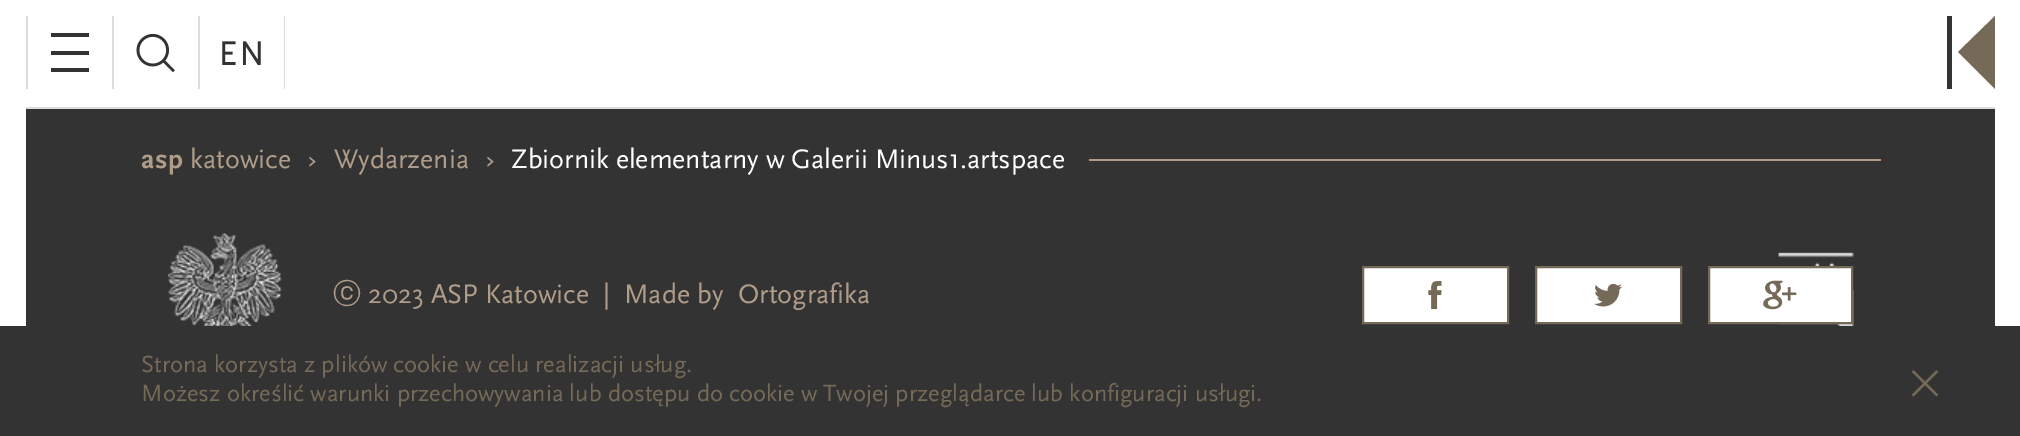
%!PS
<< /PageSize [2020 436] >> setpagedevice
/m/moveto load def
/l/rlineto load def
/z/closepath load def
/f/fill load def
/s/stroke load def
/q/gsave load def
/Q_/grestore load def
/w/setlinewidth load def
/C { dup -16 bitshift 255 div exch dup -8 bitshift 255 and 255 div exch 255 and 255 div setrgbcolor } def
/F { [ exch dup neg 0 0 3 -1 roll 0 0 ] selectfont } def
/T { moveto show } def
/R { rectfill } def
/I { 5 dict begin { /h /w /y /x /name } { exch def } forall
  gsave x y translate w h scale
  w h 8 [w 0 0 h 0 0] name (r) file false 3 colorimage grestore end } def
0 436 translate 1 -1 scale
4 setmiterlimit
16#FFFFFF C
0 0 2020 436 R
16#DCDCDC C
26 107 1969 2 R
26 16 2 73 R
16#333333 C
51 33 38 4 R
51 51 38 4 R
51 68 38 4 R
16#DCDCDC C
112 16 2 73 R
(1.rgb) 136 33 39 40 I
198 16 2 73 R
(2.rgb) 222 41 39 24 I
284 16 1 73 R
16#333333 C
1947 16 5 73 R
16#756958 C
1995 16 m 0 73 l -37 -37 l z f
16#333333 C
26 109 1969 217 R
/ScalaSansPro-Bold 28 F
16#AF9C89 C
141 168 m .5 0 (asp) ashow
/ScalaSansPro-Regular 28 F
(katowice) 190 168 T
(›) 308 168 T
(Wydarzenia) 334 168 T
(›) 486 168 T
16#FFFFFF C
(Zbiornik elementarny w Galerii Minus1.artspace) 511 168 T
16#AF9C89 C
1089 159 792 2 R
(3.rgb) 168 232 114 94 I
/WenQuanYiZenHei-Medium 28 F
(ⓒ) 333 303 T
/ScalaSansPro-Regular 28 F
(2023 ASP Katowice  |  Made by) 368 303 T
(Ortografika) 738 303 T
(4.rgb) 1778 252 76 74 I
16#FFFFFF C
1363 267 m 145 0 l 0 56 l -145 0 l z q f Q_
16#756958 C
2 w
s
(5.rgb) 1428 281 14 29 I
16#FFFFFF C
1536 267 m 145 0 l 0 56 l -145 0 l z q f Q_
16#756958 C
s
(6.rgb) 1594 283 28 24 I
16#FFFFFF C
1709 267 m 143 0 l 0 56 l -143 0 l z q f Q_
16#756958 C
s
(7.rgb) 1763 280 34 30 I
16#333333 C
0 326 2020 110 R
/ScalaSansPro-Regular 24.5 F
16#756958 C
(Strona korzysta z plików cookie w celu realizacji usług.) 141 372 T
(Możesz określić warunki przechowywania lub dostępu do cookie w Twojej przeglądarce lub konfiguracji usługi.) 141 401 T
(8.rgb) 1911 370 28 27 I
showpage
